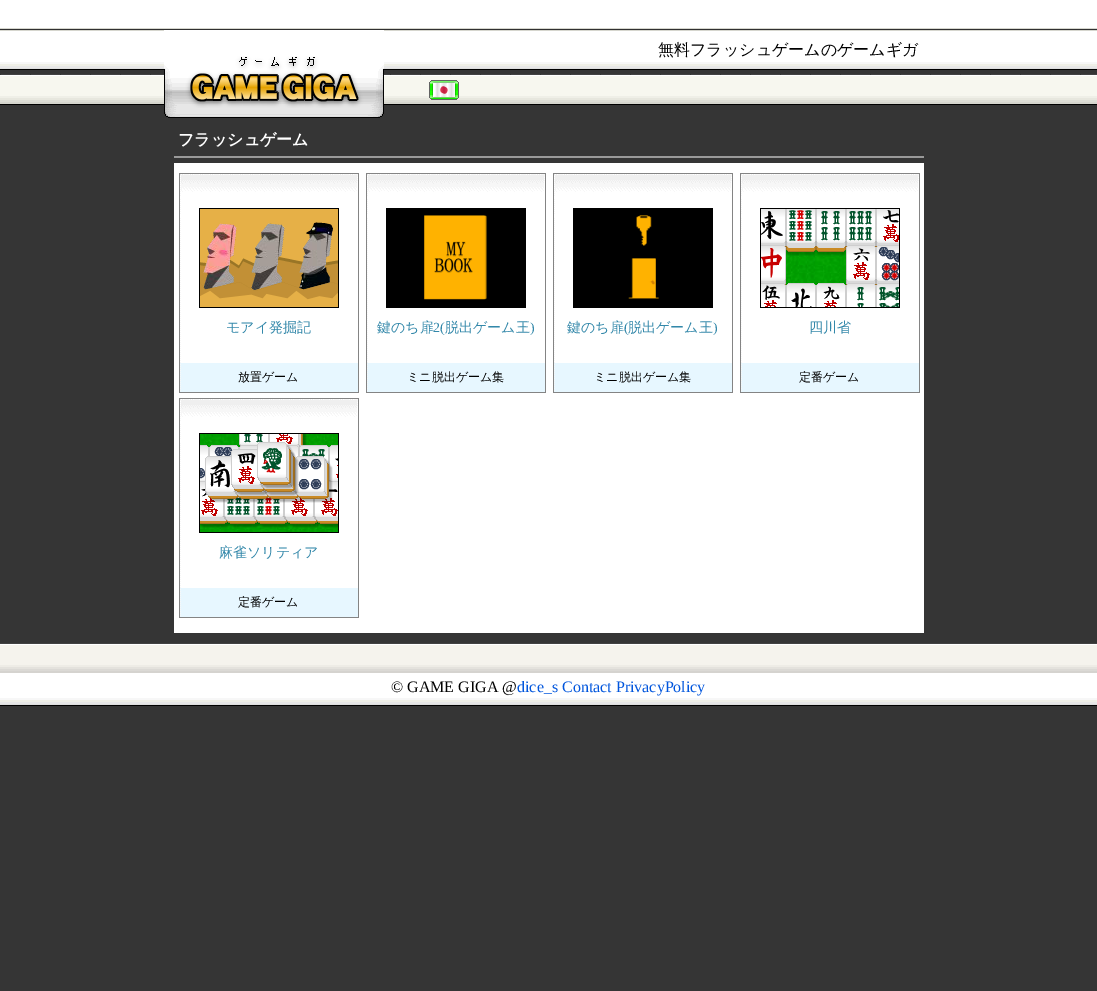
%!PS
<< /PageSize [1097 991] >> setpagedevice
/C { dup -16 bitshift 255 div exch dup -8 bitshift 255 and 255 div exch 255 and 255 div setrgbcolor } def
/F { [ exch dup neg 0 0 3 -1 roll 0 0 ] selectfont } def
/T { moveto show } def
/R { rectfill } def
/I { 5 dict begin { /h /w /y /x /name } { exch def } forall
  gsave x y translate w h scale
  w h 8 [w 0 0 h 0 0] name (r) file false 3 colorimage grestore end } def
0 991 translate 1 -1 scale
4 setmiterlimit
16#353535 C
0 0 1097 991 R
(1.rgb) 0 0 1097 105 I
(2.rgb) 164 30 220 88 I
(3.rgb) 174 56 200 52 I
/WenQuanYiZenHei-Medium 16 F
16#000000 C
(無料フラッシュゲームのゲームギガ) 658 55 T
(4.rgb) 429 80 30 20 I
16#999999 C
174 156 750 2 R
/WenQuanYiZenHei-Bold 16 F
16#FFFFFF C
(フラッシュゲーム) 178 145 T
174 163 750 470 R
(5.rgb) 179 173 180 220 I
(6.rgb) 199 208 140 100 I
/WenQuanYiZenHei-Medium 14 F
16#3388AA C
(モアイ発掘記) 226 332 T
/WenQuanYiZenHei-Medium 12 F
16#000000 C
(放置ゲーム) 238 381 T
(5.rgb) 366 173 180 220 I
(7.rgb) 386 208 140 100 I
/WenQuanYiZenHei-Medium 14 F
16#3388AA C
(鍵のち扉) 377 332 T
/LiberationSerif-Regular 14 F
(2\() 433 332 T
/WenQuanYiZenHei-Medium 14 F
(脱出ゲーム王) 445 332 T
/LiberationSerif-Regular 14 F
(\)) 530 332 T
/WenQuanYiZenHei-Medium 12 F
16#000000 C
(ミニ脱出ゲーム集) 407 381 T
(5.rgb) 553 173 180 220 I
(8.rgb) 573 208 140 100 I
/WenQuanYiZenHei-Medium 14 F
16#3388AA C
(鍵のち扉) 567 332 T
/LiberationSerif-Regular 14 F
(\() 624 332 T
/WenQuanYiZenHei-Medium 14 F
(脱出ゲーム王) 628 332 T
/LiberationSerif-Regular 14 F
(\)) 713 332 T
/WenQuanYiZenHei-Medium 12 F
16#000000 C
(ミニ脱出ゲーム集) 594 381 T
(5.rgb) 740 173 180 220 I
(9.rgb) 760 208 140 100 I
/WenQuanYiZenHei-Medium 14 F
16#3388AA C
(四川省) 809 332 T
/WenQuanYiZenHei-Medium 12 F
16#000000 C
(定番ゲーム) 799 381 T
(5.rgb) 179 398 180 220 I
(10.rgb) 199 433 140 100 I
/WenQuanYiZenHei-Medium 14 F
16#3388AA C
(麻雀ソリティア) 219 557 T
/WenQuanYiZenHei-Medium 12 F
16#000000 C
(定番ゲーム) 238 606 T
(11.rgb) 0 643 1097 30 I
16#FFFFFF C
0 673 1097 25 R
(12.rgb) 0 698 1097 8 I
/LiberationSerif-Regular 16 F
16#000000 C
(© GAME GIGA @) 391 692 T
16#0055DD C
(dice_s Contact PrivacyPolicy) 517 692 T
showpage
